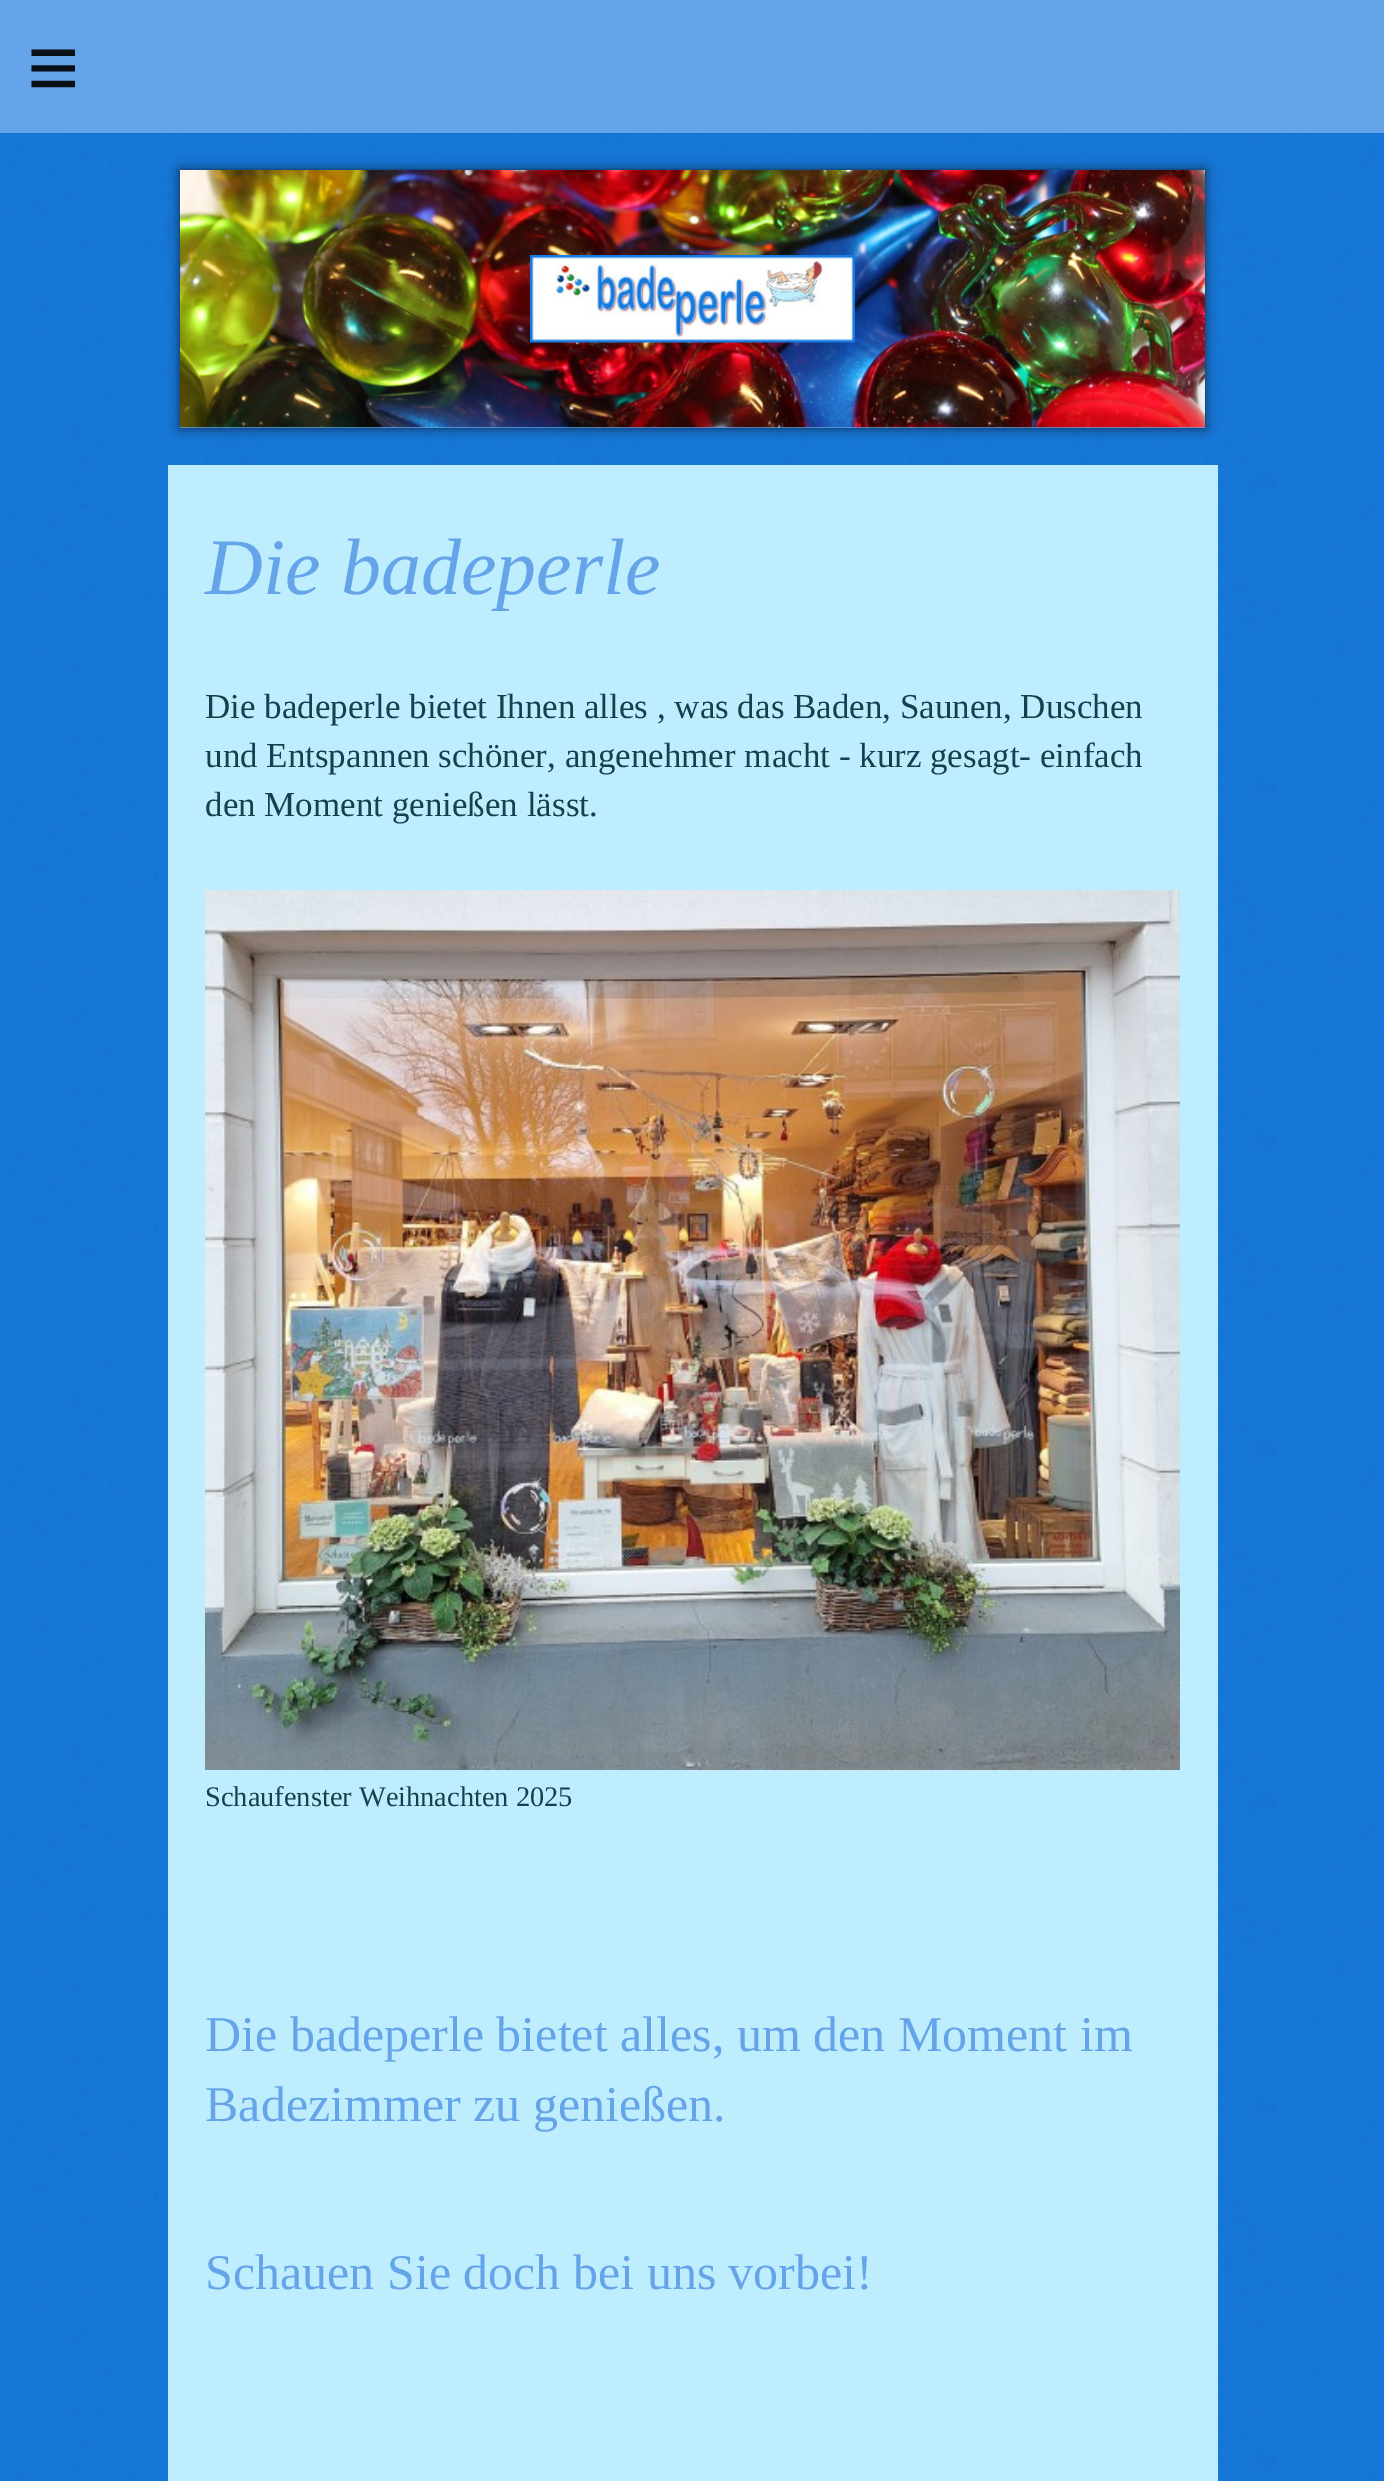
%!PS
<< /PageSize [1384 2481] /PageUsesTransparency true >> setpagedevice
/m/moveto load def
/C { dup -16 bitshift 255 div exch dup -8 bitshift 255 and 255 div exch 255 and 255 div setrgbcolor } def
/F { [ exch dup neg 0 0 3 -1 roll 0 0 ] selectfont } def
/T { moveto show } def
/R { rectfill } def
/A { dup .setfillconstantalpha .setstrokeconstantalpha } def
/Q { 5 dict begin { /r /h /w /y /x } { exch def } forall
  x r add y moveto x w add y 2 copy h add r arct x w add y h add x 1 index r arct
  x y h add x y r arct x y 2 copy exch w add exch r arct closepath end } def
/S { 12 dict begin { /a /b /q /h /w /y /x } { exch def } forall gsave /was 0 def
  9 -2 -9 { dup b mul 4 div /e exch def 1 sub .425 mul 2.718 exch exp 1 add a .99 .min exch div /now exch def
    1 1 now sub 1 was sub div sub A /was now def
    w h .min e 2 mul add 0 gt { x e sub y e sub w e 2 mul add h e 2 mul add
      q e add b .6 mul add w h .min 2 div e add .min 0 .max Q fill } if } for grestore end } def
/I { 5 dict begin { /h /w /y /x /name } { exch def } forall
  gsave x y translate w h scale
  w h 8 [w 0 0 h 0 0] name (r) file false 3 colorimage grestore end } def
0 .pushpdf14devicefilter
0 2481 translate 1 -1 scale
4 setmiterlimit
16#1677D9 C
0 0 1384 2481 R
(1.rgb) 8 133 1376 2347 I
16#66A4E9 C
0 0 1384 133 R
/LiberationSans-Regular 90 F
16#0A1017 C
27 98 m 26 0 (≡) ashow
16#0A2646 C
180 170 1025 258 0 6 1 S
16#66A4E9 C
180 427 1025 1 R
(2.rgb) 180 170 1025 258 I
(3.rgb) 530 255 325 88 I
16#BEEEFD C
168 465 1050 2016 R
/LiberationSerif-Italic 80 F
16#66A4E9 C
(Die badeperle) 205 594 T
/LiberationSerif-Regular 35 F
16#15404E C
(Die badeperle bietet Ihnen alles , was das Baden, Saunen, Duschen) 205 718 T
(und Entspannen schöner, angenehmer macht - kurz gesagt- einfach) 205 767 T
(den Moment genießen lässt.) 205 816 T
(4.rgb) 205 890 975 880 I
/LiberationSerif-Regular 28.4 F
(Schaufenster Weihnachten 2025) 205 1806 T
/LiberationSerif-Regular 50 F
16#66A4E9 C
(Die badeperle bietet alles, um den Moment im) 205 2051 T
(Badezimmer zu genießen.) 205 2121 T
(Schauen Sie doch bei uns vorbei!) 205 2289 T
.poppdf14devicefilter showpage
